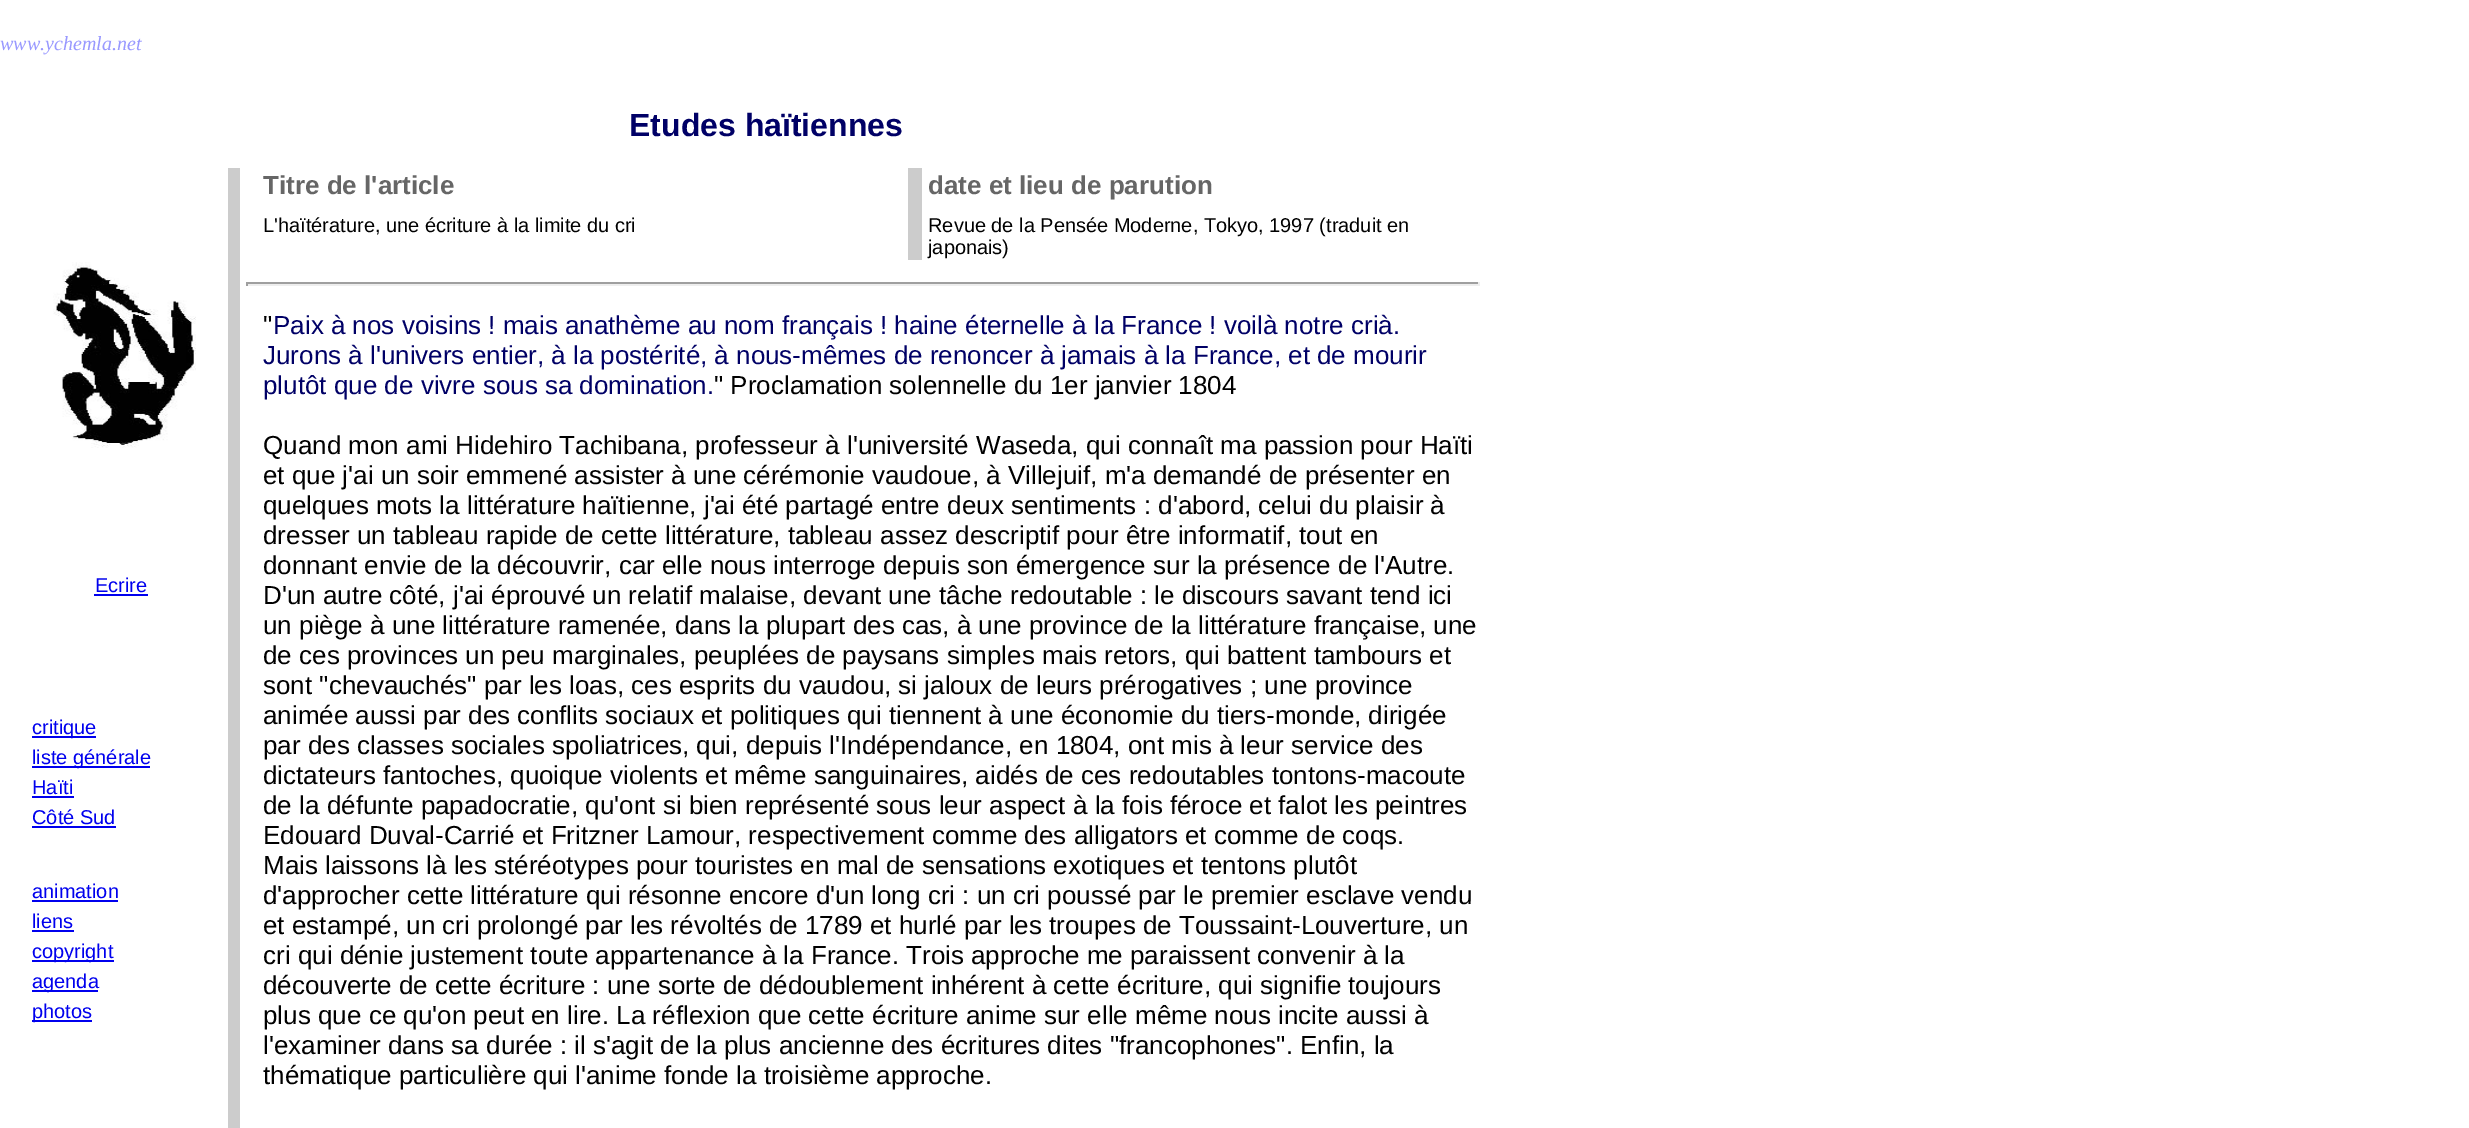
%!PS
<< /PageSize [2469 1128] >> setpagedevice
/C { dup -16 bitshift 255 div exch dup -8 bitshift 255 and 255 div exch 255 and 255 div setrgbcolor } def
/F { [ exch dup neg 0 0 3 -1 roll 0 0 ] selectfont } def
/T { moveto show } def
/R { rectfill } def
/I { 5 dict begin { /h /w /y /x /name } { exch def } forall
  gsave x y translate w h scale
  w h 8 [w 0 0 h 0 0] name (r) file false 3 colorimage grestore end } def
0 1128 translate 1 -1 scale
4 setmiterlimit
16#FFFFFF C
0 0 2469 1128 R
/LiberationSerif-Italic 20 F
16#9999FF C
(www.ychemla.net) 0 50 T
/LiberationSans-Bold 32 F
16#000066 C
(Etudes haïtiennes) 629 136 T
(1.rgb) 53 262 143 186 I
/LiberationSans-Regular 20 F
16#0000EE C
(Ecrire) 95 592 T
94 594 54 2 R
16#CCCCCC C
228 168 12 960 R
/LiberationSans-Bold 26 F
16#666666 C
(Titre de l'article) 263 194 T
16#CCCCCC C
908 168 14 92 R
16#666666 C
(date et lieu de parution) 928 194 T
/LiberationSans-Regular 20 F
16#000000 C
(L'haïtérature, une écriture à la limite du cri) 263 232 T
(Revue de la Pensée Moderne, Tokyo, 1997 \(traduit en) 928 232 T
(japonais\)) 928 254 T
16#9F9F9F C
246 282 1234 2 R
16#EEEEEE C
1478 282 2 4 R
246 284 1234 2 R
16#9F9F9F C
246 282 2 4 R
/LiberationSans-Regular 26 F
16#000000 C
(") 263 334 T
16#000066 C
(Paix à nos voisins ! mais anathème au nom français ! haine éternelle à la France ! voilà notre crià.) 273 334 T
(Jurons à l'univers entier, à la postérité, à nous-mêmes de renoncer à jamais à la France, et de mourir) 263 364 T
(plutôt que de vivre sous sa domination.) 263 394 T
16#000000 C
(" Proclamation solennelle du 1er janvier 1804) 714 394 T
(Quand mon ami Hidehiro Tachibana, professeur à l'université Waseda, qui connaît ma passion pour Haïti) 263 454 T
(et que j'ai un soir emmené assister à une cérémonie vaudoue, à Villejuif, m'a demandé de présenter en) 263 484 T
(quelques mots la littérature haïtienne, j'ai été partagé entre deux sentiments : d'abord, celui du plaisir à) 263 514 T
(dresser un tableau rapide de cette littérature, tableau assez descriptif pour être informatif, tout en) 263 544 T
(donnant envie de la découvrir, car elle nous interroge depuis son émergence sur la présence de l'Autre.) 263 574 T
(D'un autre côté, j'ai éprouvé un relatif malaise, devant une tâche redoutable : le discours savant tend ici) 263 604 T
(un piège à une littérature ramenée, dans la plupart des cas, à une province de la littérature française, une) 263 634 T
(de ces provinces un peu marginales, peuplées de paysans simples mais retors, qui battent tambours et) 263 664 T
(sont "chevauchés" par les loas, ces esprits du vaudou, si jaloux de leurs prérogatives ; une province) 263 694 T
(animée aussi par des conflits sociaux et politiques qui tiennent à une économie du tiers-monde, dirigée) 263 724 T
(par des classes sociales spoliatrices, qui, depuis l'Indépendance, en 1804, ont mis à leur service des) 263 754 T
(dictateurs fantoches, quoique violents et même sanguinaires, aidés de ces redoutables tontons-macoute) 263 784 T
(de la défunte papadocratie, qu'ont si bien représenté sous leur aspect à la fois féroce et falot les peintres) 263 814 T
(Edouard Duval-Carrié et Fritzner Lamour, respectivement comme des alligators et comme de coqs.) 263 844 T
(Mais laissons là les stéréotypes pour touristes en mal de sensations exotiques et tentons plutôt) 263 874 T
(d'approcher cette littérature qui résonne encore d'un long cri : un cri poussé par le premier esclave vendu) 263 904 T
(et estampé, un cri prolongé par les révoltés de 1789 et hurlé par les troupes de Toussaint-Louverture, un) 263 934 T
(cri qui dénie justement toute appartenance à la France. Trois approche me paraissent convenir à la) 263 964 T
(découverte de cette écriture : une sorte de dédoublement inhérent à cette écriture, qui signifie toujours) 263 994 T
(plus que ce qu'on peut en lire. La réflexion que cette écriture anime sur elle même nous incite aussi à) 263 1024 T
(l'examiner dans sa durée : il s'agit de la plus ancienne des écritures dites "francophones". Enfin, la) 263 1054 T
(thématique particulière qui l'anime fonde la troisième approche.) 263 1084 T
16#0000EE C
32 736 64 2 R
/LiberationSans-Regular 20 F
(critique) 32 734 T
32 766 118 2 R
(liste générale) 32 764 T
(Haïti) 32 794 T
32 796 42 2 R
(Côté Sud) 32 824 T
32 826 84 2 R
(animation) 32 898 T
32 900 86 2 R
(liens) 32 928 T
32 930 42 2 R
32 960 82 2 R
(copyright) 32 958 T
32 990 66 2 R
(agenda) 32 988 T
32 1020 60 2 R
(photos) 32 1018 T
showpage
